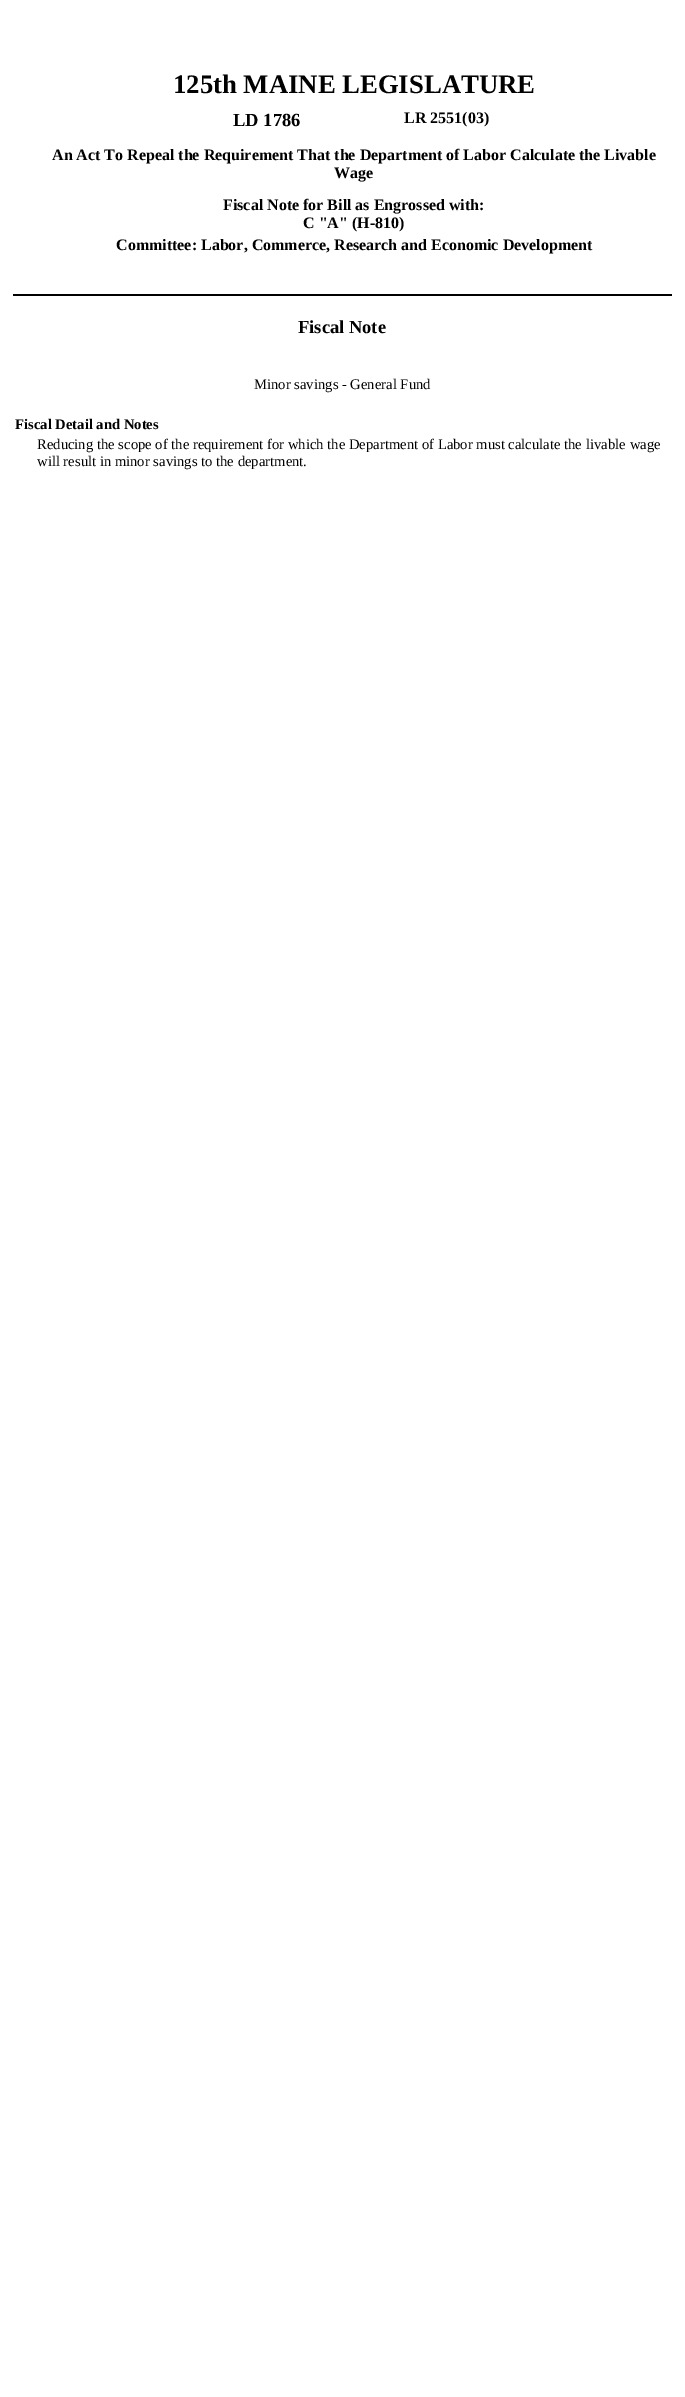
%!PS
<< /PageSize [685 2397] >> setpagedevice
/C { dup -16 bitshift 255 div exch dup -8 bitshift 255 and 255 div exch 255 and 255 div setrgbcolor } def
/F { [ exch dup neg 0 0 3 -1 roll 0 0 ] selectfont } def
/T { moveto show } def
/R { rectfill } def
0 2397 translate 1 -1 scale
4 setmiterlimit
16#FFFFFF C
0 0 685 2397 R
/LiberationSerif-Bold 26.7 F
16#000000 C
(125th MAINE LEGISLATURE) 173 93 T
/LiberationSerif-Bold 18.5 F
(LD 1786) 233 126 T
/LiberationSerif-Bold 16 F
(LR 2551\(03\)) 404 123 T
(An Act To Repeal the Requirement That the Department of Labor Calculate the Livable) 52 160 T
(Wage) 334 178 T
(Fiscal Note for Bill as Engrossed with:) 223 210 T
(C "A" \(H-810\)) 303 228 T
(Committee: Labor, Commerce, Research and Economic Development) 116 250 T
13 294 659 2 R
/LiberationSerif-Bold 18.5 F
(Fiscal Note) 298 333 T
/LiberationSerif-Regular 14.65 F
(Minor savings - General Fund) 254 389 T
/LiberationSerif-Bold 14.65 F
(Fiscal Detail and Notes) 15 429 T
/LiberationSerif-Regular 14.65 F
(Reducing the scope of the requirement for which the Department of Labor must calculate the) 37 449 T
(livable wage) 586 449 T
(will result in minor savings to the department.) 37 466 T
showpage
